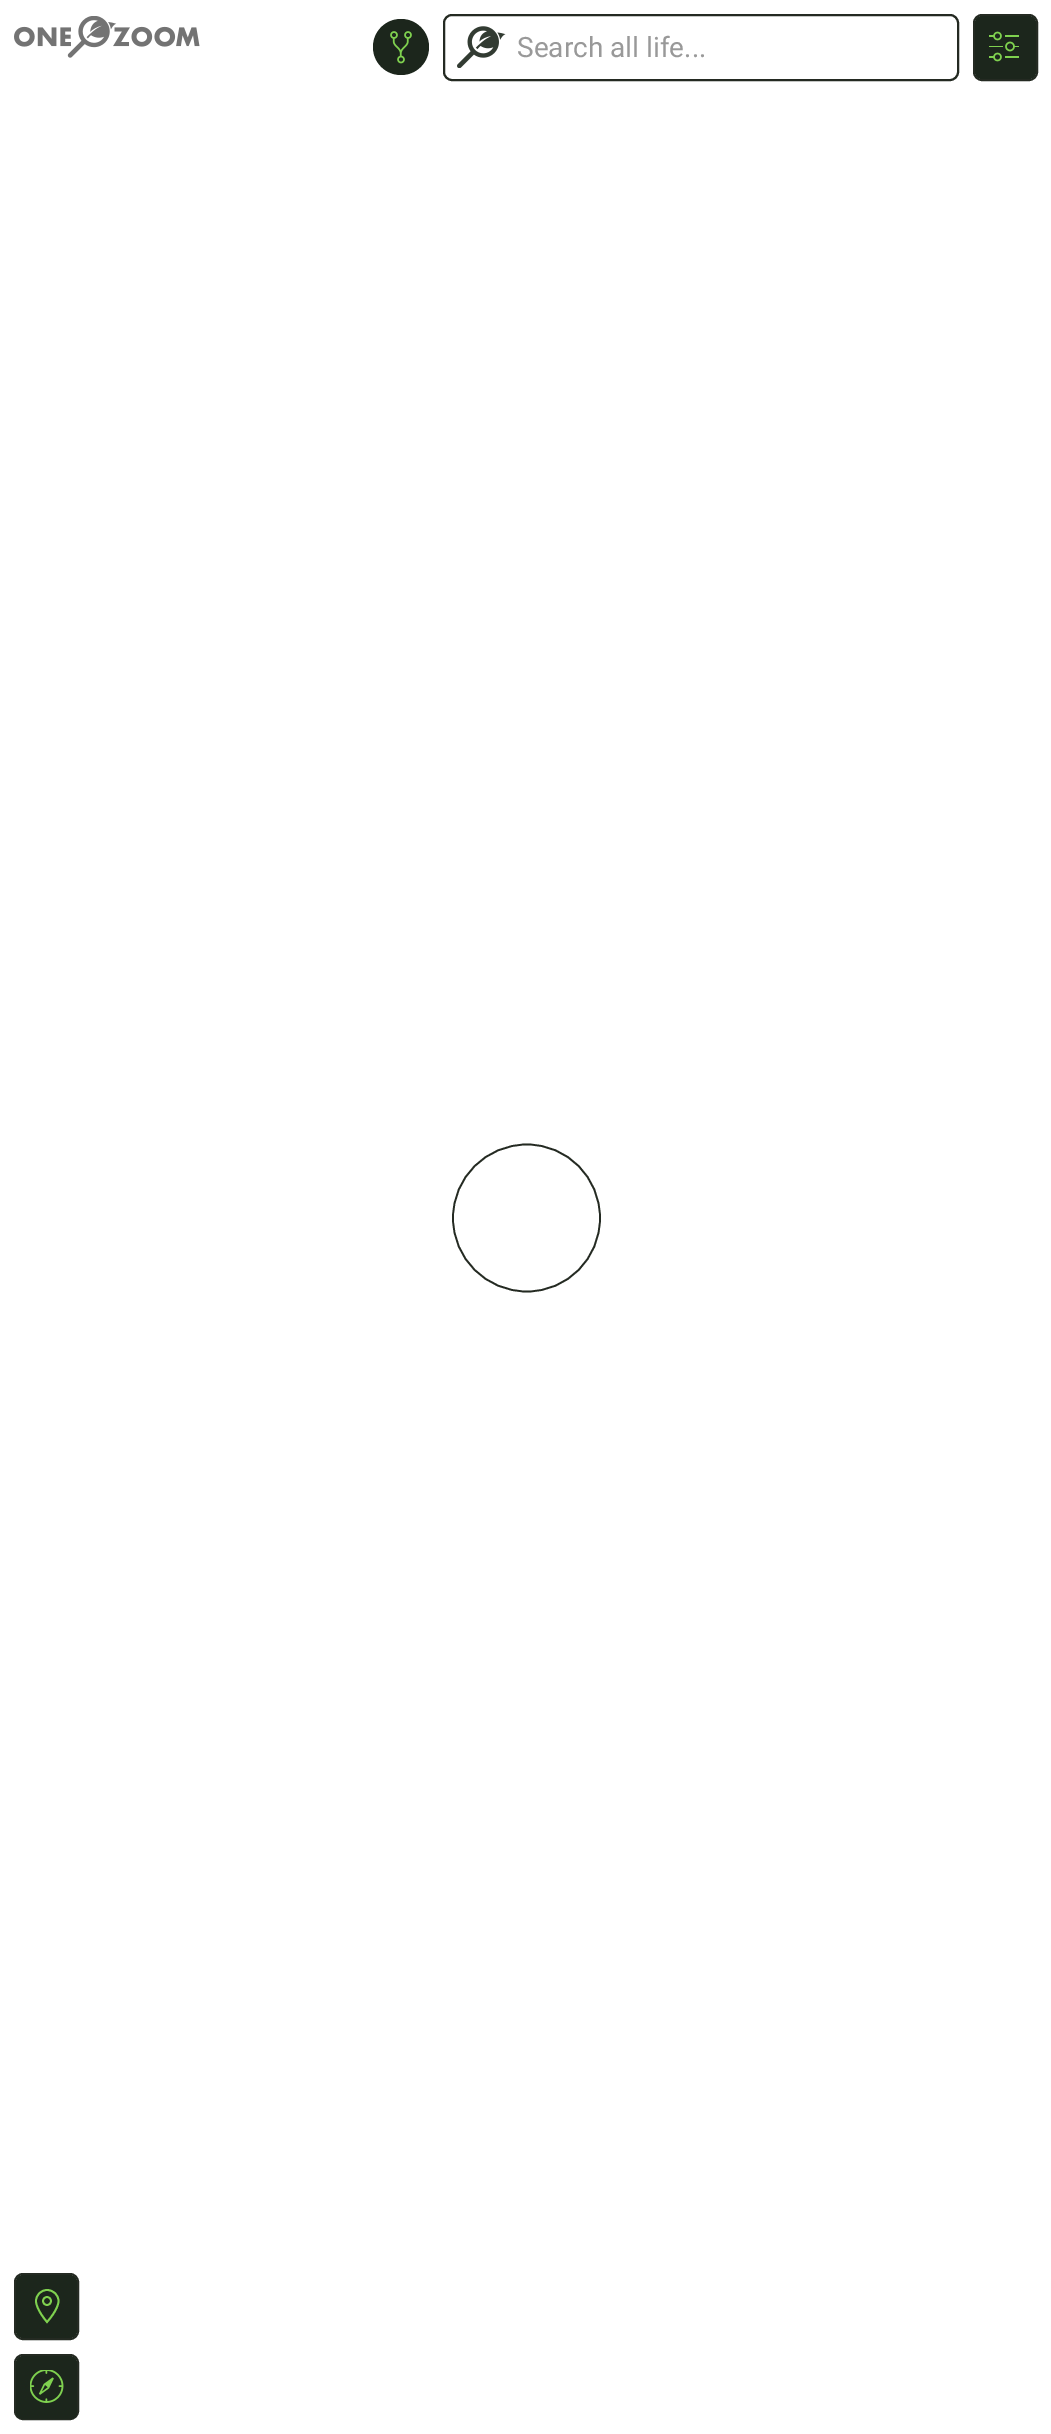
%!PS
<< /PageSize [1051 2434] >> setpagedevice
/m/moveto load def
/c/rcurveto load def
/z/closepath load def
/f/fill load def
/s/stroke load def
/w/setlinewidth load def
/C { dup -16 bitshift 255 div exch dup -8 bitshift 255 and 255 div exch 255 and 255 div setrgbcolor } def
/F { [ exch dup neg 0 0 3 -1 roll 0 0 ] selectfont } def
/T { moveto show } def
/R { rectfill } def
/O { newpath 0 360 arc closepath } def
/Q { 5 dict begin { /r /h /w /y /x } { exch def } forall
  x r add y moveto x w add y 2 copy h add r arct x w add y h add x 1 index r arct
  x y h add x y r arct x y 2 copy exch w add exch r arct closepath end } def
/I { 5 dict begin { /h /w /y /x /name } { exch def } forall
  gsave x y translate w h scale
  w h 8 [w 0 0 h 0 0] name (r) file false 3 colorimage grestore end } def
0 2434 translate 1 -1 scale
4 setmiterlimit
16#FFFFFF C
0 0 1051 2434 R
(1.rgb) 14 16 186 42 I
16#1C261C C
401 47 28 O f
(2.rgb) 390 31 22 33 I
16#242A22 C
2 w
444 15 514 65 8 Q s
(3.rgb) 457 26 49 42 I
/Roboto-Regular 28 F
16#999999 C
(Search all life...) 517 57 T
16#242A22 C
974 15 63 65 8 Q s
16#1C261C C
975 16 61 63 7 Q f
(4.rgb) 989 31 30 31 I
16#242A22 C
1.7 w
1 setlinecap
527 1144.5 m 40.5 0 73 33 73 73.5 c 0 40.5 -32.5 73.5 -73 73.5 c -41 0 -74 -33 -74 -73.5 c 0 -40.5 33 -73.5 74 -73.5 c s
2 w
0 setlinecap
15 2274 63 65 8 Q s
16#1C261C C
16 2275 61 63 7 Q f
16#7FD14F C
1.8 w
47 2290 m -6 0 -11 5 -11 11 c 0 8.5 11 21 11 21 c 0 0 11.5 -12.5 11.5 -21 c 0 -6 -5 -11 -11.5 -11 c z s
47 2301 4 O s
16#242A22 C
2 w
15 2355 63 64 8 Q s
16#1C261C C
16 2356 61 63 7 Q f
(5.rgb) 30 2370 34 33 I
showpage
